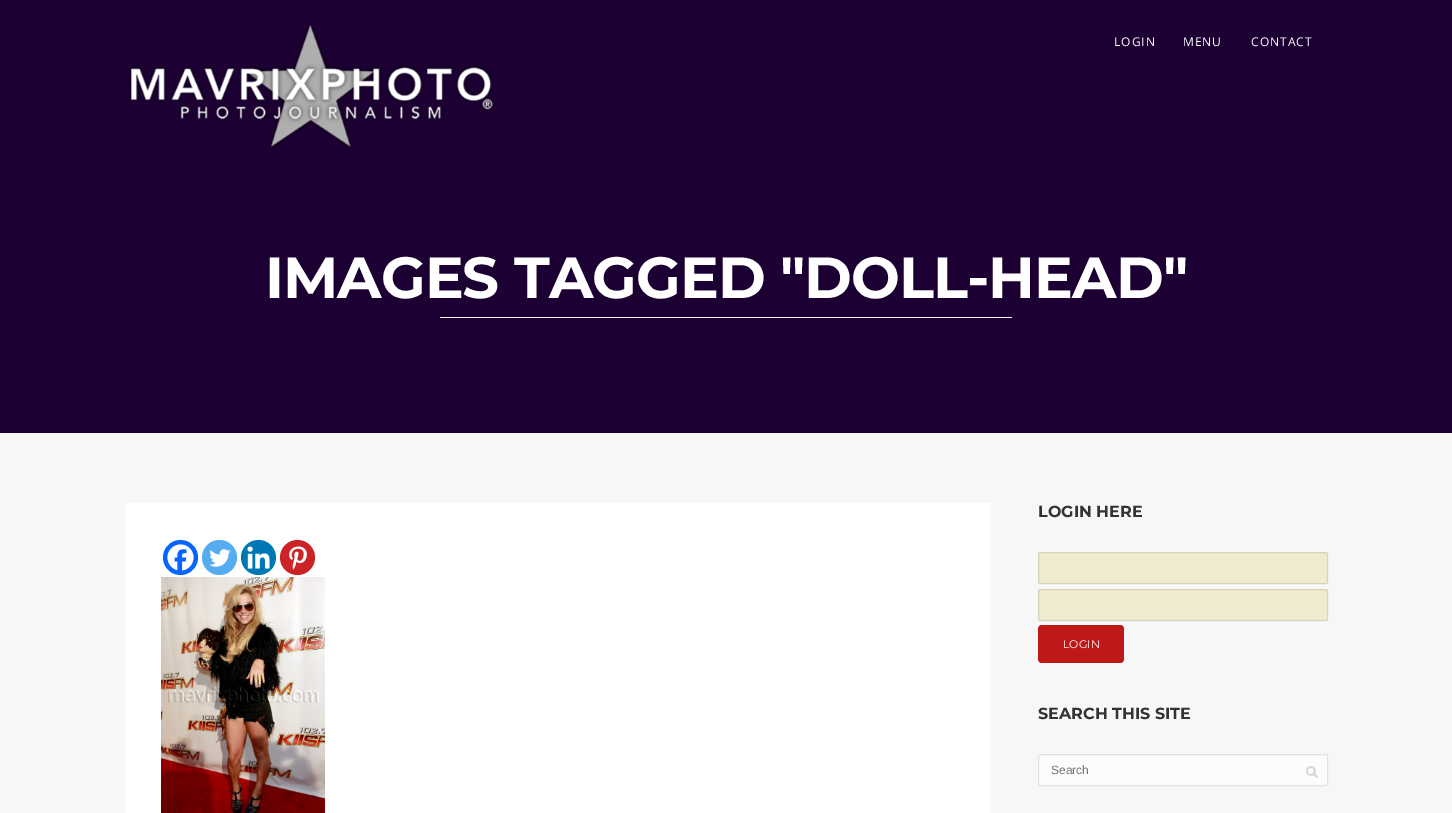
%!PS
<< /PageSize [1452 813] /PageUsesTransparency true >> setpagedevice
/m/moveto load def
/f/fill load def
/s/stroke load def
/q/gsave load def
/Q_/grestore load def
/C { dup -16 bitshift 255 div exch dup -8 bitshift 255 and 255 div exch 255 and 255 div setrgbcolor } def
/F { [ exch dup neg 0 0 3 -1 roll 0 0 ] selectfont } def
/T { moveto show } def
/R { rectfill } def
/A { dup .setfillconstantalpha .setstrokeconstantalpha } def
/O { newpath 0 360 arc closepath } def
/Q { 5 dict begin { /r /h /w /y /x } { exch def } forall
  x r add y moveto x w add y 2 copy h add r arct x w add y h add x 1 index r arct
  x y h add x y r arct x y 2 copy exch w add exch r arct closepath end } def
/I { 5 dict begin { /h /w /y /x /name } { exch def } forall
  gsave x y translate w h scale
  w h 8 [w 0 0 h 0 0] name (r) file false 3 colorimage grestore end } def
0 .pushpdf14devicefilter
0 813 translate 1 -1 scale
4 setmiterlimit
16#F7F7F7 C
0 0 1452 813 R
16#1C0033 C
0 0 1452 433 R
(1.rgb) 128 24 367 124 I
/OpenSans-Regular 12 F
16#FFFFFF C
1114 46 m 1 0 (LOGIN) ashow
1183 46 m 1 0 (MENU) ashow
1251 46 m 1 0 (CONTACT) ashow
/Montserrat-Bold 58 F
265 298 m -1 0 (IMAGES TAGGED "DOLL-HEAD") ashow
440 317 572 1 R
126 503 864 310 R
16#0765FE C
180.5 557.5 17.5 O f
(2.rgb) 167 544 27 27 I
16#55ACEE C
219.5 557.5 17.5 O f
(3.rgb) 209 549 22 18 I
16#0077B5 C
258.5 557.5 17.5 O f
(4.rgb) 247 546 23 23 I
16#CC2329 C
297.5 557.5 17.5 O f
(5.rgb) 289 546 18 24 I
(6.rgb) 161 577 164 236 I
/Montserrat-Bold 16 F
16#333332 C
(LOGIN HERE) 1038 517 T
16#EEEBCE C
1038 552 290 32 2 Q f
0.1 A
16#000000 C
1038.5 552.5 289 31 1.5 Q s
1 A
16#EEEBCE C
1038 589 290 32 2 Q f
0.1 A
16#000000 C
1038.5 589.5 289 31 1.5 Q s
1 A
16#BE1818 C
1038 625 86 38 4 Q f
/Montserrat-Regular 11 F
16#FFFFFF C
(LOGIN) 1063 648 T
/Montserrat-Bold 16 F
16#333332 C
(SEARCH THIS SITE) 1038 719 T
16#FCFCFC C
1038.5 754.5 289 31 1.5 Q q f Q_
16#E3E3E3 C
s
/LiberationSans-Regular 12 F
16#757575 C
(Search) 1051 774 T
(7.rgb) 1306 766 12 12 I
.poppdf14devicefilter showpage
